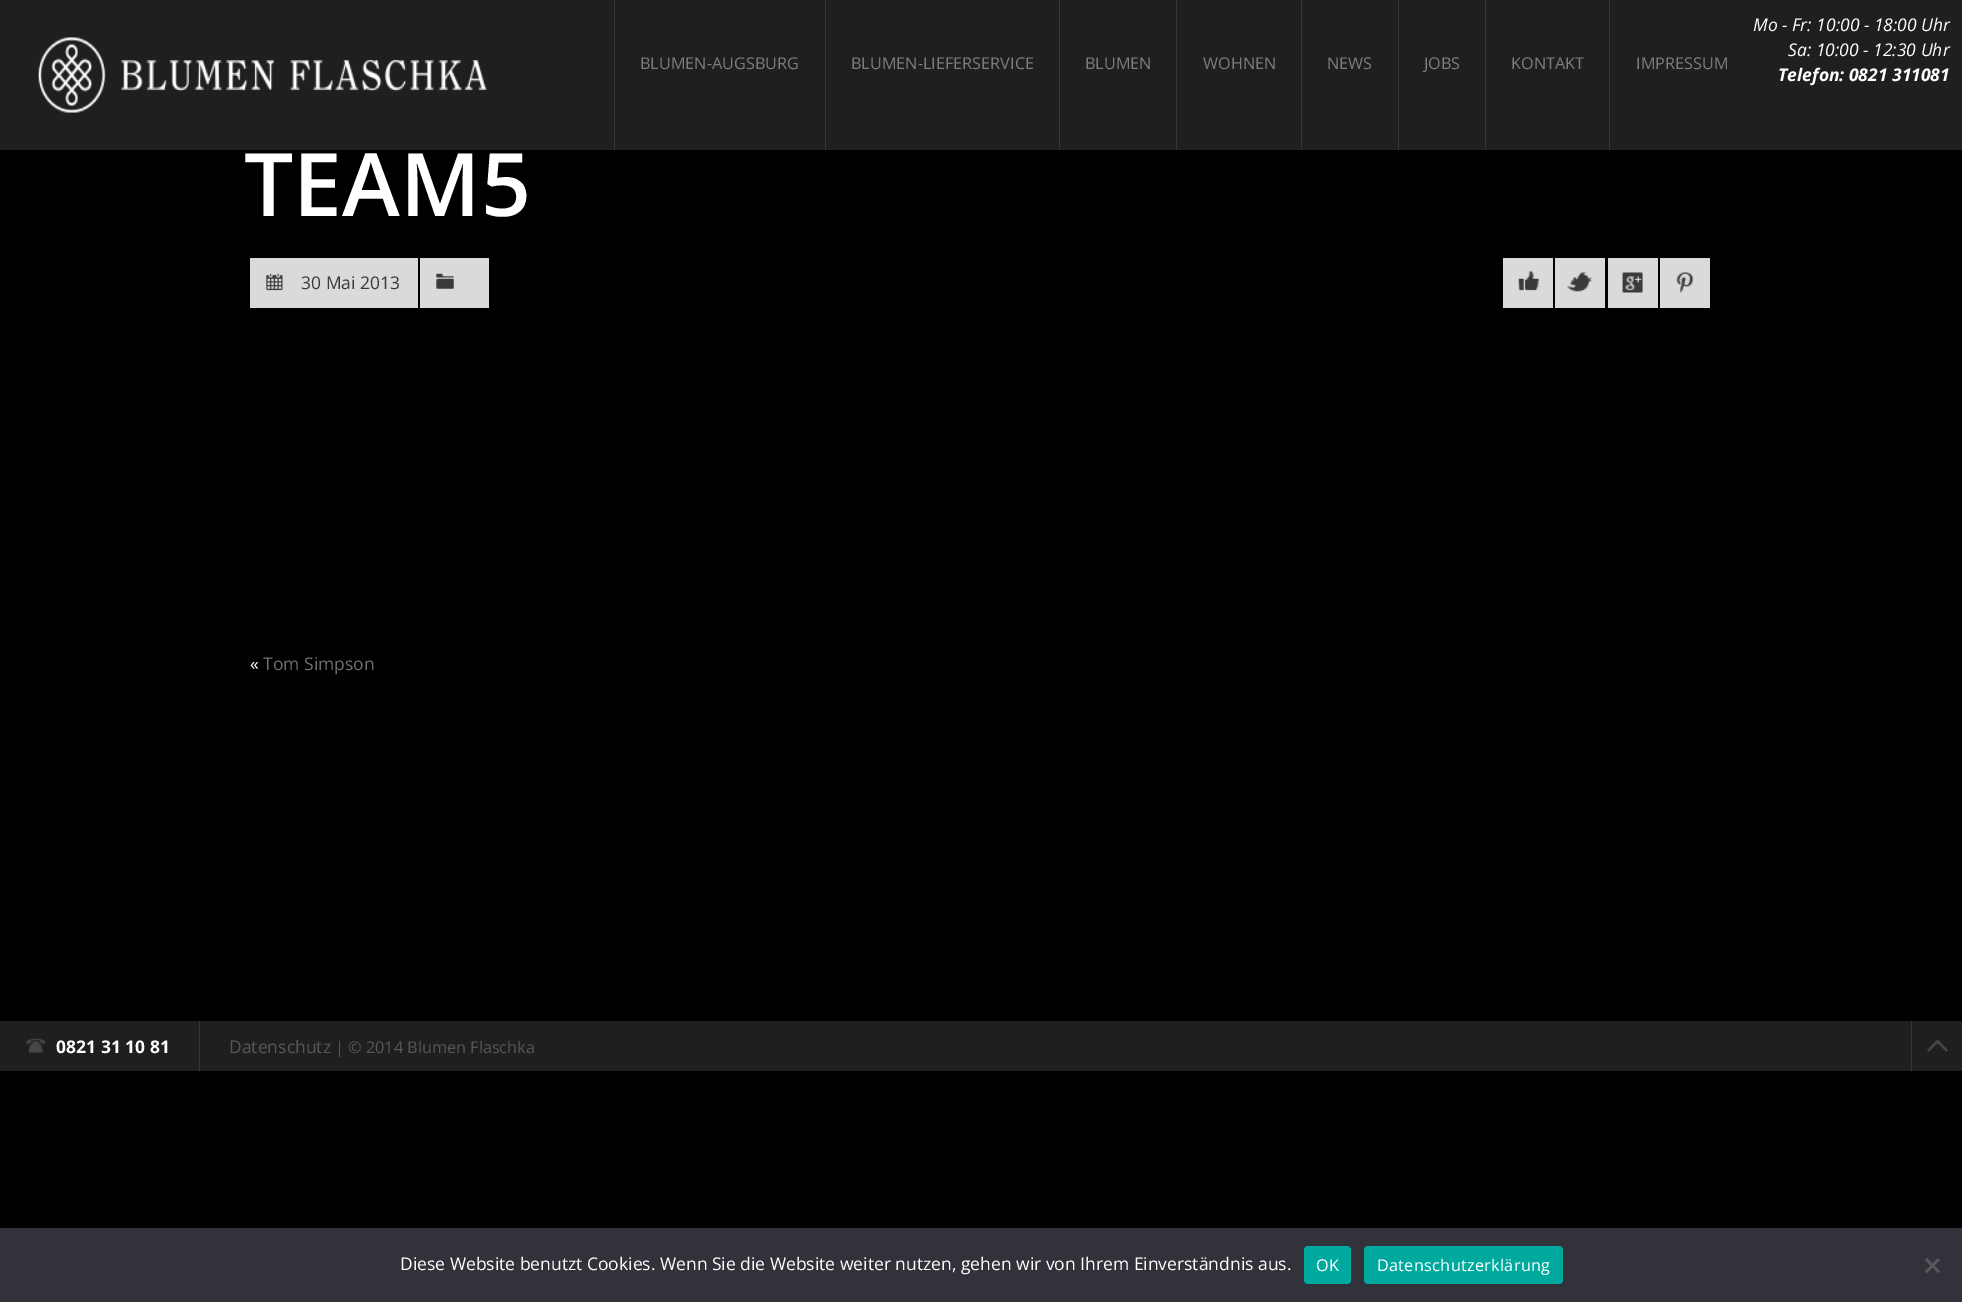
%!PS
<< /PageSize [1962 1302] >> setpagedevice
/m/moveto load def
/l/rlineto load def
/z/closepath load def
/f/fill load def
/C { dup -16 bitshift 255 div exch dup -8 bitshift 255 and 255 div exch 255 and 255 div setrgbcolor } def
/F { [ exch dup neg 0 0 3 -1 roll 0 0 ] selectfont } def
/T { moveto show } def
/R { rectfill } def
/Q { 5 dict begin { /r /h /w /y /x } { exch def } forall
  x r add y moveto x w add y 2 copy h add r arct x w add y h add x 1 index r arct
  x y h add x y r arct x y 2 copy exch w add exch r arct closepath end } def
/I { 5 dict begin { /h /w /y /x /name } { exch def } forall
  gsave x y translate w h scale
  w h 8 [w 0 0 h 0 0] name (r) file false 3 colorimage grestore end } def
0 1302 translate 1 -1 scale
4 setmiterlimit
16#000000 C
0 0 1962 1302 R
16#1F1F1F C
0 0 1962 150 R
(1.rgb) 38 37 449 76 I
16#363636 C
614 0 1 150 R
/OpenSans-Regular 16.25 F
16#7D7D7D C
(BLUMEN-AUGSBURG) 640 69 T
16#363636 C
825 0 1 150 R
16#7D7D7D C
(BLUMEN-LIEFERSERVICE) 851 69 T
16#363636 C
1059 0 1 150 R
16#7D7D7D C
(BLUMEN) 1085 69 T
16#363636 C
1176 0 1 150 R
16#7D7D7D C
(WOHNEN) 1203 69 T
16#363636 C
1301 0 1 150 R
16#7D7D7D C
(NEWS) 1327 69 T
16#363636 C
1398 0 1 150 R
16#7D7D7D C
(JOBS) 1424 69 T
16#363636 C
1485 0 1 150 R
16#7D7D7D C
(KONTAKT) 1511 69 T
16#363636 C
1609 0 1 150 R
16#7D7D7D C
(IMPRESSUM) 1636 69 T
/OpenSans-Italic 17.5 F
16#FFFFFF C
(Mo - Fr: 10:00 - 18:00 Uhr) 1753 31 T
(Sa: 10:00 - 12:30 Uhr) 1788 56 T
/OpenSans-BoldItalic 17.5 F
(Telefon: 0821 311081) 1778 81 T
/OpenSans-SemiBold 87.5 F
(TEAM5) 244 216 T
16#DADADA C
250 258 168 50 R
(2.rgb) 266 273 17 18 I
/OpenSans-Regular 17.5 F
16#3A3A3A C
(30 Mai 2013) 301 289 T
16#DADADA C
420 258 69 50 R
(3.rgb) 436 273 18 16 I
1503 258 50 50 R
(4.rgb) 1518 271 21 20 I
1555 258 50 50 R
(5.rgb) 1567 272 26 20 I
1608 258 50 50 R
(6.rgb) 1622 272 21 21 I
1660 258 50 50 R
(7.rgb) 1676 272 18 21 I
16#FFFFFF C
(«) 250 670 T
16#707070 C
(Tom Simpson) 263 670 T
16#1F1F1F C
0 1021 1962 50 R
16#363636 C
199 1021 1 50 R
(8.rgb) 26 1038 20 15 I
/OpenSans-Bold 17.5 F
16#FFFFFF C
(0821 31 10 81) 56 1053 T
/OpenSans-Regular 17.5 F
16#575757 C
(Datenschutz) 229 1053 T
/OpenSans-Regular 16.25 F
(| © 2014 Blumen Flaschka) 335 1053 T
16#363636 C
1911 1021 1 50 R
(9.rgb) 1927 1040 21 12 I
16#32323A C
0 1228 1962 74 R
/OpenSans-Regular 17.5 F
16#FFFFFF C
(Diese Website benutzt Cookies. Wenn Sie die Website weiter nutzen, gehen wir von Ihrem Einverständnis aus.) 400 1270 T
16#00A99D C
1304 1246 47 38 4 Q f
/OpenSans-Regular 16.25 F
16#FFFFFF C
1316 1271 m .3 0 (OK) ashow
16#00A99D C
1364 1246 199 38 4 Q f
16#FFFFFF C
1377 1271 m .3 0 (Datenschutzerklärung) ashow
16#59595D C
1938 1258 m 2 2 l -13 13 l -2 -1.5 l z f
1925 1260 m 2 -2 l 13 13.5 l -2 1.5 l z f
showpage
